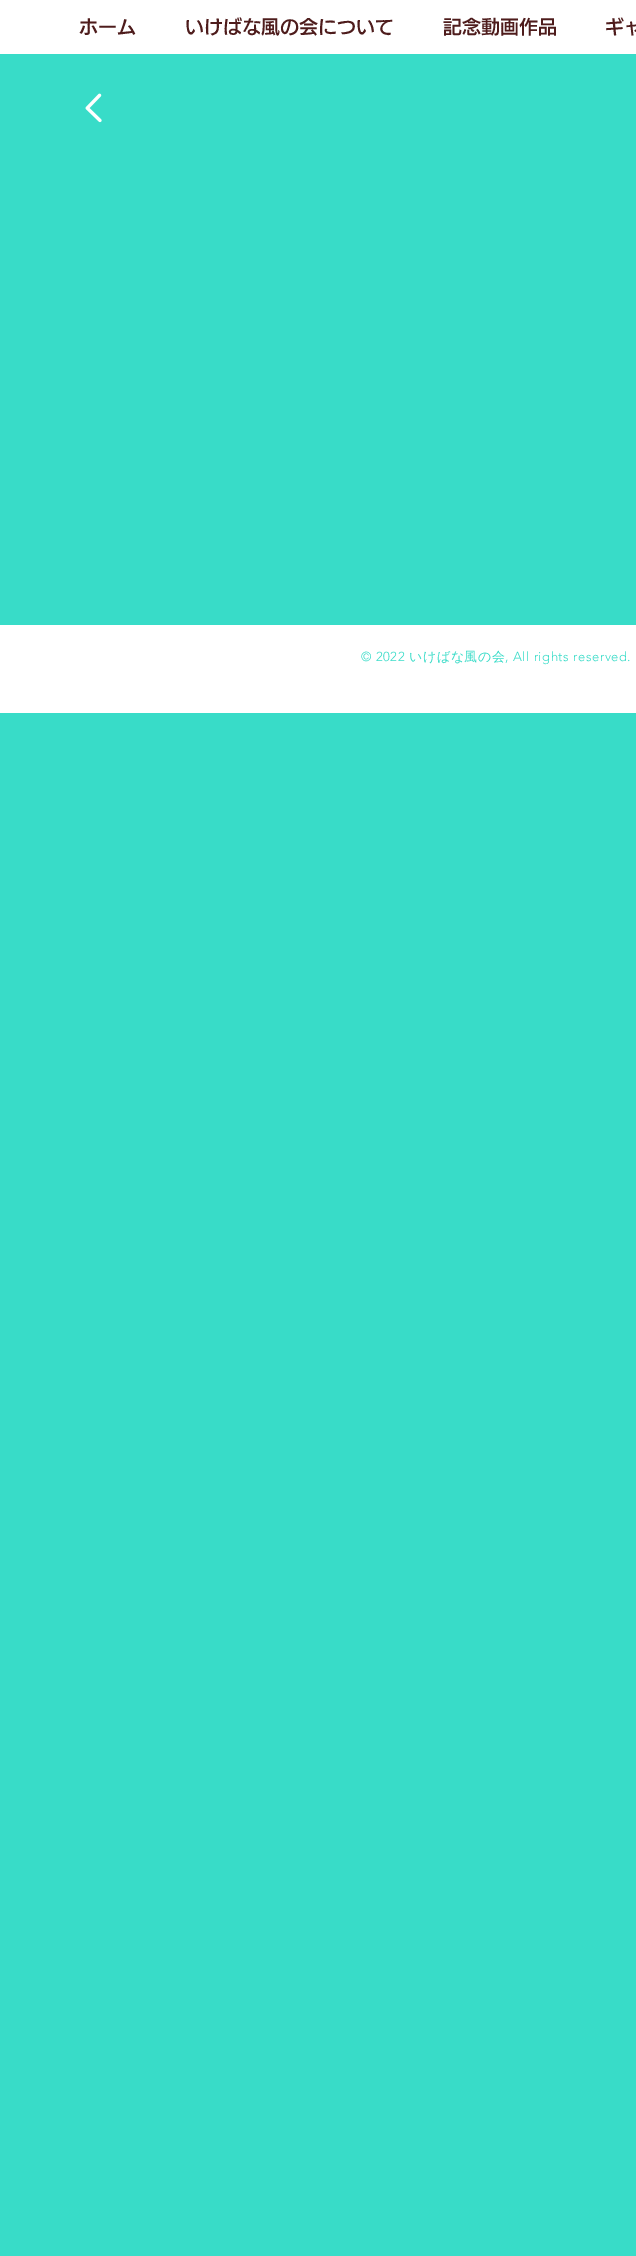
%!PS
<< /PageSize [636 2256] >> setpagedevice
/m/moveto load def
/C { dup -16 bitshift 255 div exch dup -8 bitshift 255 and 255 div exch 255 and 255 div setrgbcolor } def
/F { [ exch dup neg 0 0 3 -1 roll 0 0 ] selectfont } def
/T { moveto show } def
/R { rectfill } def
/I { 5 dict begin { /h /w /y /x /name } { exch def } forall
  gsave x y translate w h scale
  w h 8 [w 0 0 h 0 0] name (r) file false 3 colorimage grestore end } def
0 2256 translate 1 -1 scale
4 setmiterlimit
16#38DCC8 C
0 0 636 2256 R
16#FFFFFF C
0 0 636 54 R
/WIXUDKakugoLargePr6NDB-SemiBold 19 F
16#4E1C1C C
(ホーム) 79 34 T
(いけばな風の会について) 185 34 T
(記念動画作品) 443 34 T
(ギャ) 605 34 T
(1.rgb) 85 93 17 30 I
16#FFFFFF C
0 625 636 88 R
/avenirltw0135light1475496-Light 13 F
16#38DCC8 C
361 661 m .55 0 (© 2022) ashow
/WenQuanYiZenHei-Medium 13 F
409 661 m .55 0 (いけばな風の会) ashow
/avenirltw0135light1475496-Light 13 F
505 661 m .55 0 (, All rights reserved.) ashow
showpage
